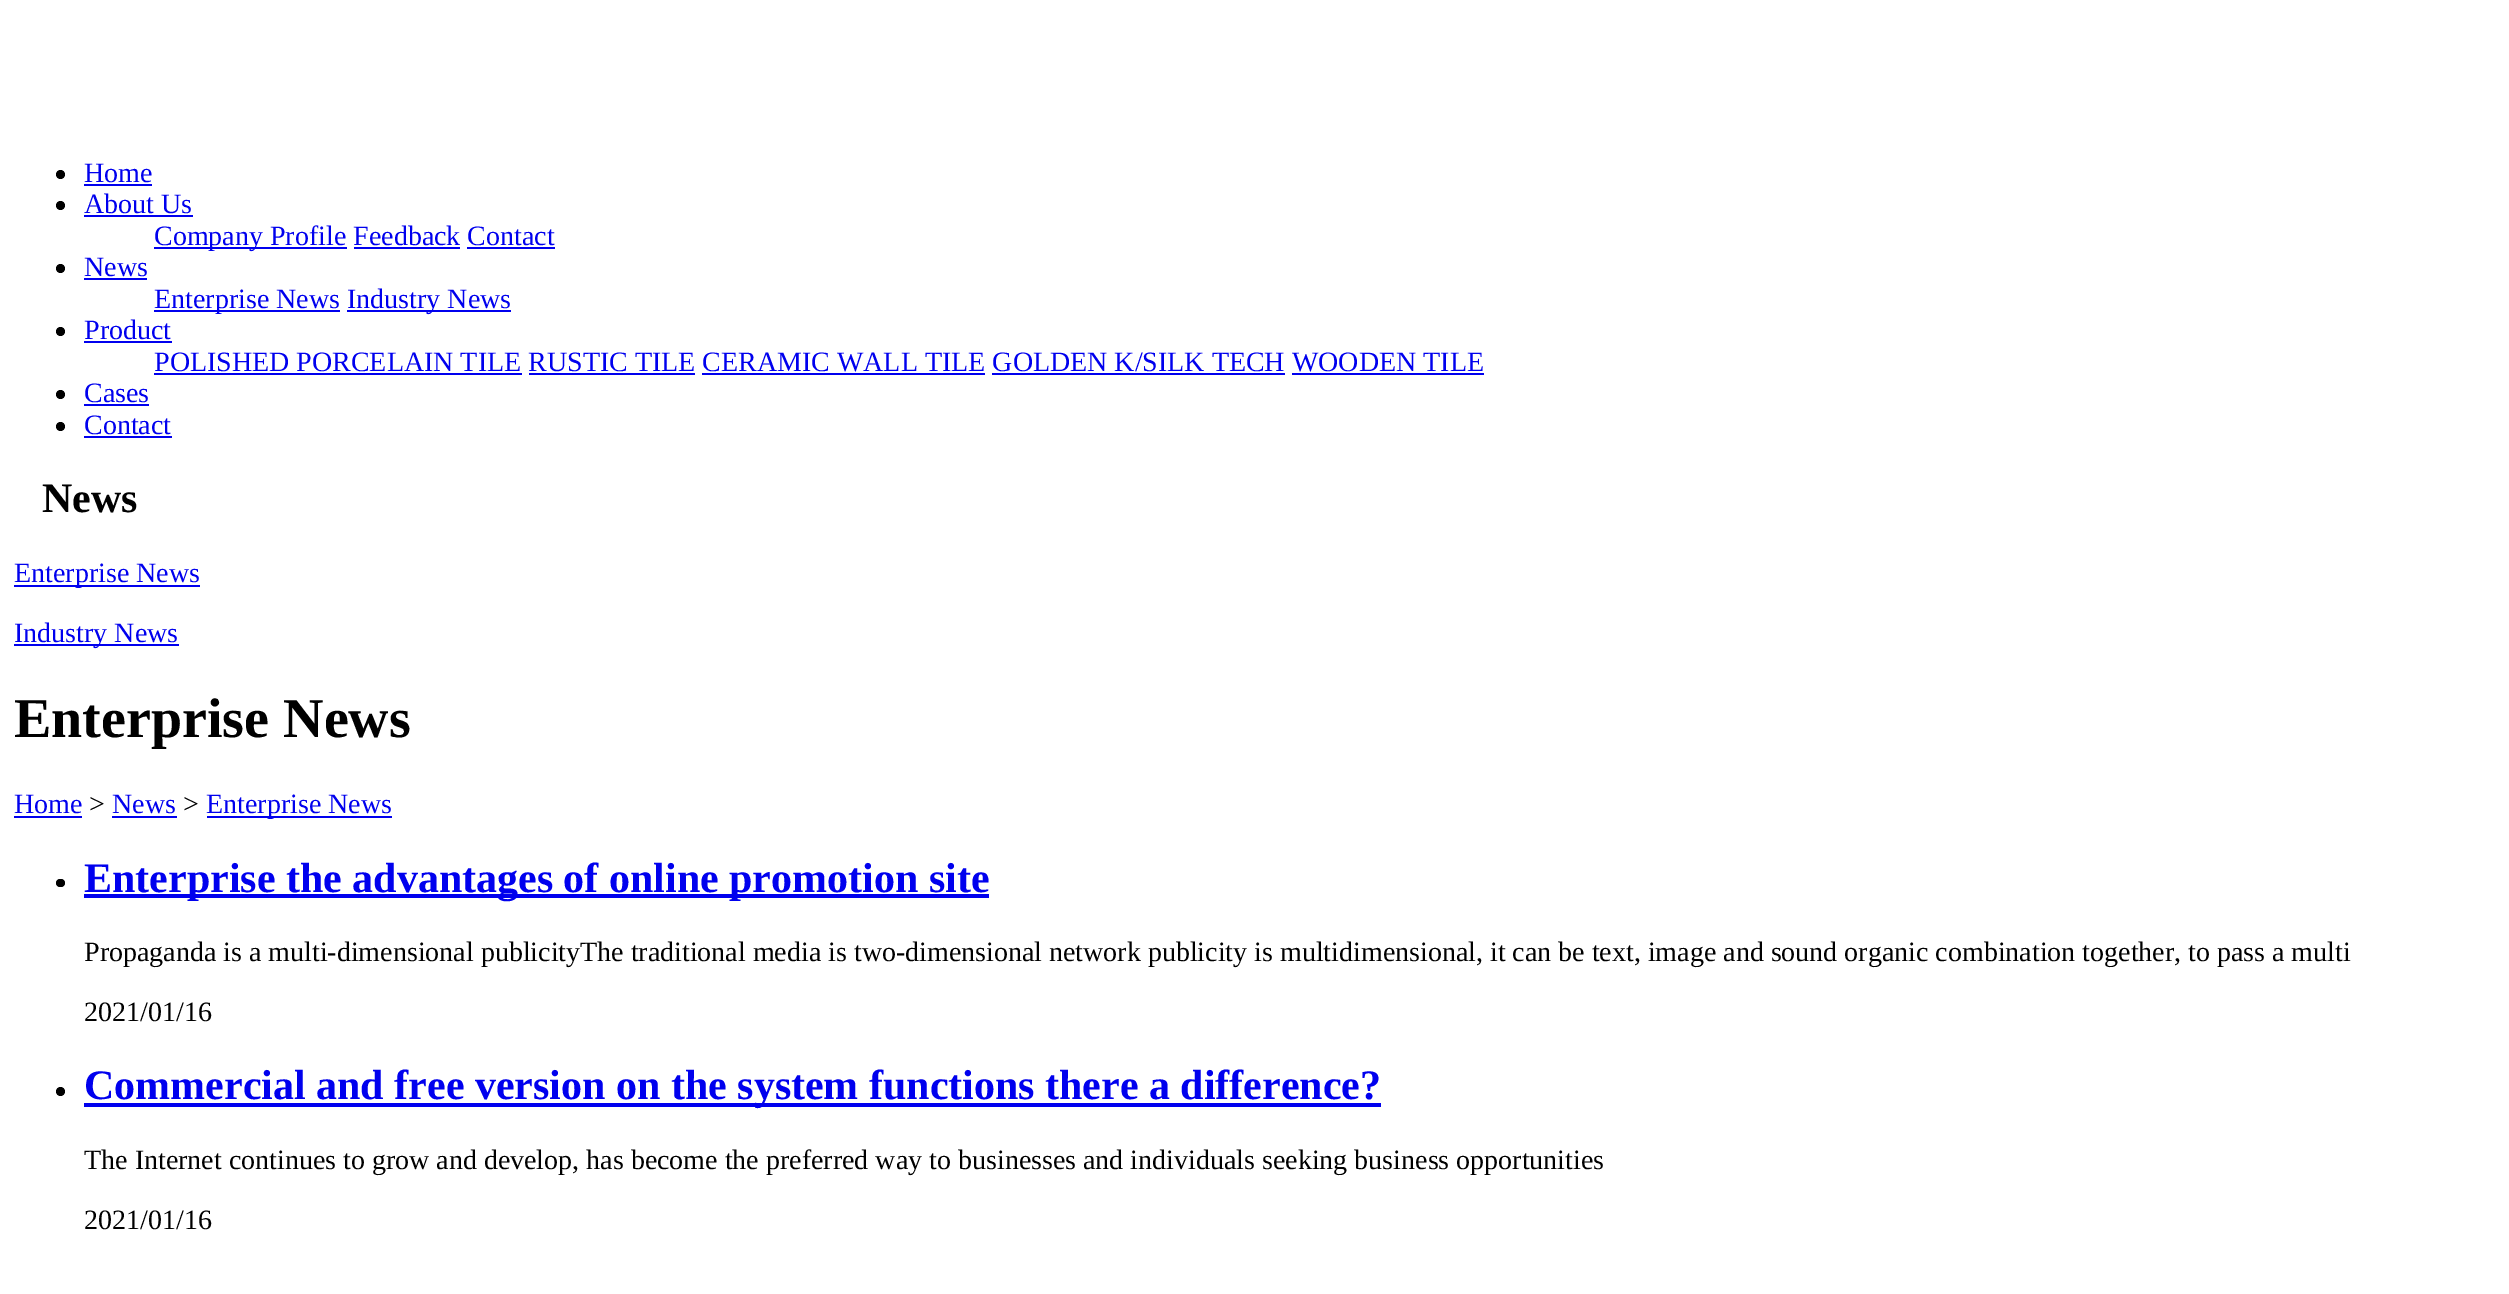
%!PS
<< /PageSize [2509 1294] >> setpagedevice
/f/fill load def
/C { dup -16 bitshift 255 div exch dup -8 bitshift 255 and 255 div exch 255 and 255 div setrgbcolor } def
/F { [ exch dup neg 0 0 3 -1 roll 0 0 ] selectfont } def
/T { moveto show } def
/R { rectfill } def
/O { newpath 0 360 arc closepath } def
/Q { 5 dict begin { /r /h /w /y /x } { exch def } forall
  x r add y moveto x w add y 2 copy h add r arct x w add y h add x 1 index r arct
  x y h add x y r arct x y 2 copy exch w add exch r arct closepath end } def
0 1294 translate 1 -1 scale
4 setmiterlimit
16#FFFFFF C
0 0 2509 1294 R
16#000000 C
60.5 174.5 4.5 O f
/LiberationSerif-Regular 28 F
16#0000EE C
(Home) 84 182 T
84 184 68 2 R
16#000000 C
60.5 205.5 4.5 O f
16#0000EE C
(About Us) 84 213 T
84 215 109 2 R
154 247 193 2 R
(Company Profile Feedback Contact) 154 245 T
354 247 106 2 R
467 247 88 2 R
16#000000 C
60.5 268.5 4.5 O f
16#0000EE C
(News) 84 276 T
84 278 63 2 R
154 310 186 2 R
(Enterprise News) 154 308 T
347 310 164 2 R
(Industry News) 347 308 T
16#000000 C
60.5 331.5 4.5 O f
16#0000EE C
(Product) 84 339 T
84 341 88 2 R
(POLISHED PORCELAIN TILE RUSTIC TILE CERAMIC WALL TILE GOLDEN K/SILK TECH WOODEN TILE) 154 371 T
154 373 368 2 R
529 373 166 2 R
702 373 283 2 R
992 373 293 2 R
1292 373 192 2 R
16#000000 C
60.5 394.5 4.5 O f
16#0000EE C
(Cases) 84 402 T
84 404 65 2 R
16#000000 C
60.5 426.5 4.5 O f
16#0000EE C
(Contact) 84 434 T
84 436 88 2 R
/LiberationSerif-Bold 42 F
16#000000 C
(News) 42 512 T
16#0000EE C
14 585 186 2 R
/LiberationSerif-Regular 28 F
(Enterprise News) 14 582 T
14 644 165 2 R
(Industry News) 14 642 T
/LiberationSerif-Bold 56 F
16#000000 C
(Enterprise News) 14 737 T
/LiberationSerif-Regular 28 F
16#0000EE C
(Home) 14 813 T
14 816 68 2 R
16#000000 C
(>) 89 813 T
16#0000EE C
(News) 112 813 T
112 816 65 2 R
16#000000 C
(>) 183 813 T
16#0000EE C
207 816 185 2 R
(Enterprise News) 206 813 T
16#000000 C
56 879 9 8 4 Q f
16#0000EE C
84 894 905 4 R
/LiberationSerif-Bold 42 F
(Enterprise the advantages of online promotion site) 84 892 T
/LiberationSerif-Regular 28 F
16#000000 C
(Propaganda is a multi-dimensional publicityThe traditional media is two-dimensional network publicity is multidimensional, it can be text, image and sound organic combination together, to pass a multi) 84 961 T
(2021/01/16) 84 1021 T
60.5 1091.5 4.5 O f
16#0000EE C
84 1103 1297 4 R
/LiberationSerif-Bold 42 F
(Commercial and free version on the system functions there a difference?) 84 1099 T
/LiberationSerif-Regular 28 F
16#000000 C
(The Internet continues to grow and develop, has become the preferred way to businesses and individuals seeking business opportunities) 84 1169 T
(2021/01/16) 84 1229 T
showpage
